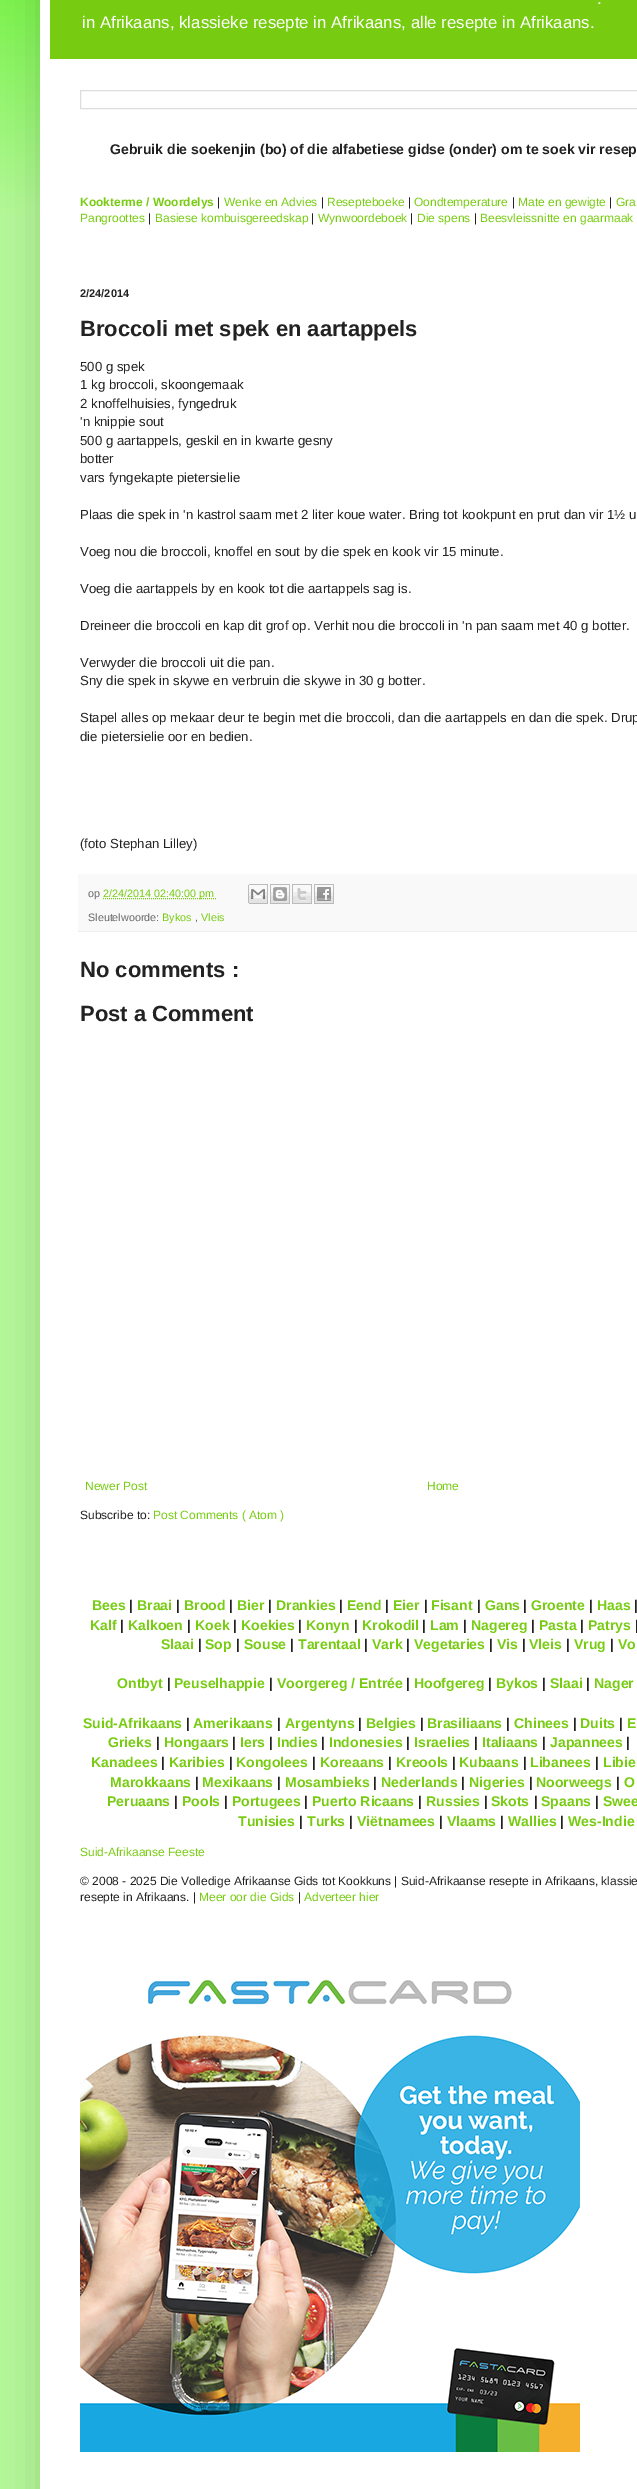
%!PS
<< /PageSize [637 2489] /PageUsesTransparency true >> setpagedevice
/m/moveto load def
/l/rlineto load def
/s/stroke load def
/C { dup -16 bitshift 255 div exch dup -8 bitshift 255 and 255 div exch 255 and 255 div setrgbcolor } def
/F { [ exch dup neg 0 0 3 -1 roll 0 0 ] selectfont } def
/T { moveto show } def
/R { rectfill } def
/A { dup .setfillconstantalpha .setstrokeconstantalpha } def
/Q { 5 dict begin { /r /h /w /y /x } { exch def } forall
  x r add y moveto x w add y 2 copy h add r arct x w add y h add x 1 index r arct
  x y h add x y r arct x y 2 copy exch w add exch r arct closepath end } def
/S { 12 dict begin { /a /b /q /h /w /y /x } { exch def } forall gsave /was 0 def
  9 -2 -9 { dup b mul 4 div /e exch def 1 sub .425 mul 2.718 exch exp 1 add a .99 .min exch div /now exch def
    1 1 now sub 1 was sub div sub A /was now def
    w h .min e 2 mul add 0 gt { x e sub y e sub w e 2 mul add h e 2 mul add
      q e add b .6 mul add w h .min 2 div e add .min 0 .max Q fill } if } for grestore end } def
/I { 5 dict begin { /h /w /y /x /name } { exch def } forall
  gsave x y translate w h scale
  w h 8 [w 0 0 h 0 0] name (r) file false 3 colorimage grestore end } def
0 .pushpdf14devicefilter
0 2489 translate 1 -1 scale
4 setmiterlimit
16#B4F799 C
0 0 637 2489 R
16#44EE00 C
0 0 40 216 R
(1.rgb) 0 0 40 216 I
16#000000 C
40 -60 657 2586 0 20 .15 S
16#FFFFFF C
40 0 597 2489 R
16#77CC11 C
50 0 587 59 R
/LiberationSans-Regular 16.8 F
16#FFFFFF C
(.) 597 4 T
(in Afrikaans, klassieke resepte in Afrikaans, alle resepte in Afrikaans.) 82 28 T
16#DDDDDD C
80.5 90.5 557 18 rectstroke
/LiberationSans-Bold 14.05 F
16#222222 C
(Gebruik die soekenjin \(bo\) of die alfabetiese gidse \(onder\) om te soek vir resep) 110 154 T
/LiberationSans-Bold 12 F
16#77CC11 C
(Kookterme / Woordelys) 80 206 T
/LiberationSans-Regular 12 F
16#222222 C
(|) 217 206 T
16#77CC11 C
(Wenke en Advies) 224 206 T
16#222222 C
(|) 321 206 T
16#77CC11 C
(Resepteboeke) 327 206 T
16#222222 C
(|) 408 206 T
16#77CC11 C
(Oondtemperature) 414 206 T
16#222222 C
(|) 512 206 T
16#77CC11 C
(Mate en gewigte) 518 206 T
16#222222 C
(|) 609 206 T
16#77CC11 C
(Gra) 616 206 T
(Pangroottes) 80 222 T
16#222222 C
(|) 148 222 T
16#77CC11 C
(Basiese kombuisgereedskap) 155 222 T
16#222222 C
(|) 311 222 T
16#77CC11 C
(Wynwoordeboek) 318 222 T
16#222222 C
(|) 410 222 T
16#77CC11 C
(Die spens) 417 222 T
16#222222 C
(|) 474 222 T
16#77CC11 C
(Beesvleissnitte en gaarmaak) 480 222 T
/LiberationSans-Bold 11 F
16#222222 C
(2/24/2014) 80 297 T
/LiberationSans-Bold 22 F
(Broccoli met spek en aartappels) 80 336 T
/LiberationSans-Regular 13.2 F
(500 g spek) 80 371 T
(1 kg broccoli, skoongemaak) 80 389 T
(2 knoffelhuisies, fyngedruk) 80 408 T
('n knippie sout) 80 426 T
(500 g aartappels, geskil en in kwarte gesny) 80 445 T
(botter) 80 463 T
(vars fyngekapte pietersielie) 80 482 T
(Plaas die spek in 'n kastrol saam met 2 liter koue water. Bring tot kookpunt en prut dan vir 1½ u) 80 519 T
(Voeg nou die broccoli, knoffel en sout by die spek en kook vir 15 minute.) 80 556 T
(Voeg die aartappels by en kook tot die aartappels sag is.) 80 593 T
(Dreineer die broccoli en kap dit grof op. Verhit nou die broccoli in 'n pan saam met 40 g botter.) 80 630 T
(Verwyder die broccoli uit die pan.) 80 667 T
(Sny die spek in skywe en verbruin die skywe in 30 g botter.) 80 685 T
(Stapel alles op mekaar deur te begin met die broccoli, dan die aartappels en dan die spek. Drup) 80 722 T
(die pietersielie oor en bedien.) 80 741 T
(\(foto Stephan Lilley\)) 80 848 T
16#F9F9F9 C
78 874 559 57 R
16#EEEEEE C
78 931 559 1 R
/LiberationSans-Regular 10.75 F
16#666666 C
(op) 88 897 T
16#77CC11 C
[1 1] 0 setdash
103 898.5 m 114 0 l s
(2/24/2014 02:40:00 pm) 103 897 T
(2.rgb) 248 884 20 20 I
(3.rgb) 270 884 20 20 I
(4.rgb) 292 884 20 20 I
(5.rgb) 314 884 20 20 I
16#666666 C
(Sleutelwoorde:) 88 921 T
16#77CC11 C
(Bykos) 162 921 T
16#666666 C
(,) 195 921 T
16#77CC11 C
(Vleis) 201 921 T
/LiberationSans-Bold 22 F
16#222222 C
(No comments :) 80 977 T
(Post a Comment) 80 1021 T
/LiberationSans-Regular 12 F
16#77CC11 C
(Newer Post) 85 1490 T
(Home) 427 1490 T
16#222222 C
(Subscribe to:) 80 1519 T
16#77CC11 C
(Post Comments \( Atom \)) 153 1519 T
/LiberationSans-Bold 14.05 F
(Bees) 92 1610 T
16#222222 C
(|) 129 1610 T
16#77CC11 C
(Braai) 137 1610 T
16#222222 C
(|) 176 1610 T
16#77CC11 C
(Brood) 184 1610 T
16#222222 C
(|) 229 1610 T
16#77CC11 C
(Bier) 237 1610 T
16#222222 C
(|) 268 1610 T
16#77CC11 C
(Drankies) 276 1610 T
16#222222 C
(|) 339 1610 T
16#77CC11 C
(Eend) 347 1610 T
16#222222 C
(|) 385 1610 T
16#77CC11 C
(Eier) 393 1610 T
16#222222 C
(|) 424 1610 T
16#77CC11 C
(Fisant) 431 1610 T
16#222222 C
(|) 477 1610 T
16#77CC11 C
(Gans) 485 1610 T
16#222222 C
(|) 523 1610 T
16#77CC11 C
(Groente) 531 1610 T
16#222222 C
(|) 589 1610 T
16#77CC11 C
(Haas) 597 1610 T
16#222222 C
(|) 634 1610 T
16#77CC11 C
(Kalf) 90 1630 T
16#222222 C
(|) 120 1630 T
16#77CC11 C
(Kalkoen) 128 1630 T
16#222222 C
(|) 187 1630 T
16#77CC11 C
(Koek) 195 1630 T
16#222222 C
(|) 233 1630 T
16#77CC11 C
(Koekies) 241 1630 T
16#222222 C
(|) 298 1630 T
16#77CC11 C
(Konyn) 306 1630 T
16#222222 C
(|) 354 1630 T
16#77CC11 C
(Krokodil) 362 1630 T
16#222222 C
(|) 422 1630 T
16#77CC11 C
(Lam) 430 1630 T
16#222222 C
(|) 463 1630 T
16#77CC11 C
(Nagereg) 471 1630 T
16#222222 C
(|) 531 1630 T
16#77CC11 C
(Pasta) 539 1630 T
16#222222 C
(|) 580 1630 T
16#77CC11 C
(Patrys) 588 1630 T
16#222222 C
(|) 635 1630 T
16#77CC11 C
(Slaai) 161 1649 T
16#222222 C
(|) 198 1649 T
16#77CC11 C
(Sop) 205 1649 T
16#222222 C
(|) 236 1649 T
16#77CC11 C
(Souse) 244 1649 T
16#222222 C
(|) 290 1649 T
16#77CC11 C
(Tarentaal) 298 1649 T
16#222222 C
(|) 364 1649 T
16#77CC11 C
(Vark) 372 1649 T
16#222222 C
(|) 406 1649 T
16#77CC11 C
(Vegetaries) 414 1649 T
16#222222 C
(|) 489 1649 T
16#77CC11 C
(Vis) 497 1649 T
16#222222 C
(|) 522 1649 T
16#77CC11 C
(Vleis) 529 1649 T
16#222222 C
(|) 566 1649 T
16#77CC11 C
(Vrug) 574 1649 T
16#222222 C
(|) 610 1649 T
16#77CC11 C
(Vo) 618 1649 T
(Ontbyt) 117 1688 T
16#222222 C
(|) 167 1688 T
16#77CC11 C
(Peuselhappie) 174 1688 T
16#222222 C
(|) 269 1688 T
16#77CC11 C
(Voorgereg / Entrée) 277 1688 T
16#222222 C
(|) 406 1688 T
16#77CC11 C
(Hoofgereg) 414 1688 T
16#222222 C
(|) 488 1688 T
16#77CC11 C
(Bykos) 496 1688 T
16#222222 C
(|) 542 1688 T
16#77CC11 C
(Slaai) 550 1688 T
16#222222 C
(|) 586 1688 T
16#77CC11 C
(Nager) 594 1688 T
(Suid-Afrikaans) 83 1728 T
16#222222 C
(|) 186 1728 T
16#77CC11 C
(Amerikaans) 193 1728 T
16#222222 C
(|) 277 1728 T
16#77CC11 C
(Argentyns) 285 1728 T
16#222222 C
(|) 358 1728 T
16#77CC11 C
(Belgies) 366 1728 T
16#222222 C
(|) 420 1728 T
16#77CC11 C
(Brasiliaans) 427 1728 T
16#222222 C
(|) 506 1728 T
16#77CC11 C
(Chinees) 514 1728 T
16#222222 C
(|) 573 1728 T
16#77CC11 C
(Duits) 580 1728 T
16#222222 C
(|) 619 1728 T
16#77CC11 C
(E) 627 1728 T
(Grieks) 108 1747 T
16#222222 C
(|) 156 1747 T
16#77CC11 C
(Hongaars) 164 1747 T
16#222222 C
(|) 232 1747 T
16#77CC11 C
(Iers) 240 1747 T
16#222222 C
(|) 269 1747 T
16#77CC11 C
(Indies) 277 1747 T
16#222222 C
(|) 321 1747 T
16#77CC11 C
(Indonesies) 329 1747 T
16#222222 C
(|) 406 1747 T
16#77CC11 C
(Israelies) 414 1747 T
16#222222 C
(|) 474 1747 T
16#77CC11 C
(Italiaans) 482 1747 T
16#222222 C
(|) 542 1747 T
16#77CC11 C
(Japannees) 550 1747 T
16#222222 C
(|) 626 1747 T
16#77CC11 C
(Kanadees) 91 1767 T
16#222222 C
(|) 161 1767 T
16#77CC11 C
(Karibies) 169 1767 T
16#222222 C
(|) 229 1767 T
16#77CC11 C
(Kongolees) 236 1767 T
16#222222 C
(|) 312 1767 T
16#77CC11 C
(Koreaans) 320 1767 T
16#222222 C
(|) 388 1767 T
16#77CC11 C
(Kreools) 396 1767 T
16#222222 C
(|) 452 1767 T
16#77CC11 C
(Kubaans) 459 1767 T
16#222222 C
(|) 523 1767 T
16#77CC11 C
(Libanees) 530 1767 T
16#222222 C
(|) 595 1767 T
16#77CC11 C
(Libie) 603 1767 T
(Marokkaans) 110 1787 T
16#222222 C
(|) 195 1787 T
16#77CC11 C
(Mexikaans) 202 1787 T
16#222222 C
(|) 277 1787 T
16#77CC11 C
(Mosambieks) 285 1787 T
16#222222 C
(|) 373 1787 T
16#77CC11 C
(Nederlands) 381 1787 T
16#222222 C
(|) 461 1787 T
16#77CC11 C
(Nigeries) 469 1787 T
16#222222 C
(|) 529 1787 T
16#77CC11 C
(Noorweegs) 536 1787 T
16#222222 C
(|) 616 1787 T
16#77CC11 C
(O) 624 1787 T
(Peruaans) 107 1806 T
16#222222 C
(|) 174 1806 T
16#77CC11 C
(Pools) 182 1806 T
16#222222 C
(|) 224 1806 T
16#77CC11 C
(Portugees) 232 1806 T
16#222222 C
(|) 304 1806 T
16#77CC11 C
(Puerto Ricaans) 312 1806 T
16#222222 C
(|) 418 1806 T
16#77CC11 C
(Russies) 426 1806 T
16#222222 C
(|) 484 1806 T
16#77CC11 C
(Skots) 491 1806 T
16#222222 C
(|) 534 1806 T
16#77CC11 C
(Spaans) 541 1806 T
16#222222 C
(|) 595 1806 T
16#77CC11 C
(Swee) 603 1806 T
(Tunisies) 238 1826 T
16#222222 C
(|) 299 1826 T
16#77CC11 C
(Turks) 307 1826 T
16#222222 C
(|) 349 1826 T
16#77CC11 C
(Viëtnamees) 357 1826 T
16#222222 C
(|) 439 1826 T
16#77CC11 C
(Vlaams) 447 1826 T
16#222222 C
(|) 500 1826 T
16#77CC11 C
(Wallies) 508 1826 T
16#222222 C
(|) 560 1826 T
16#77CC11 C
(Wes-Indie) 568 1826 T
/LiberationSans-Regular 12 F
(Suid-Afrikaanse Feeste) 80 1856 T
16#222222 C
(© 2008 - 2025 Die Volledige Afrikaanse Gids tot Kookkuns | Suid-Afrikaanse resepte in Afrikaans, klassie) 80 1885 T
(resepte in Afrikaans. |) 80 1901 T
16#77CC11 C
(Meer oor die Gids) 199 1901 T
16#222222 C
(|) 298 1901 T
16#77CC11 C
(Adverteer hier) 304 1901 T
(6.rgb) 80 1980 500 472 I
.poppdf14devicefilter showpage
